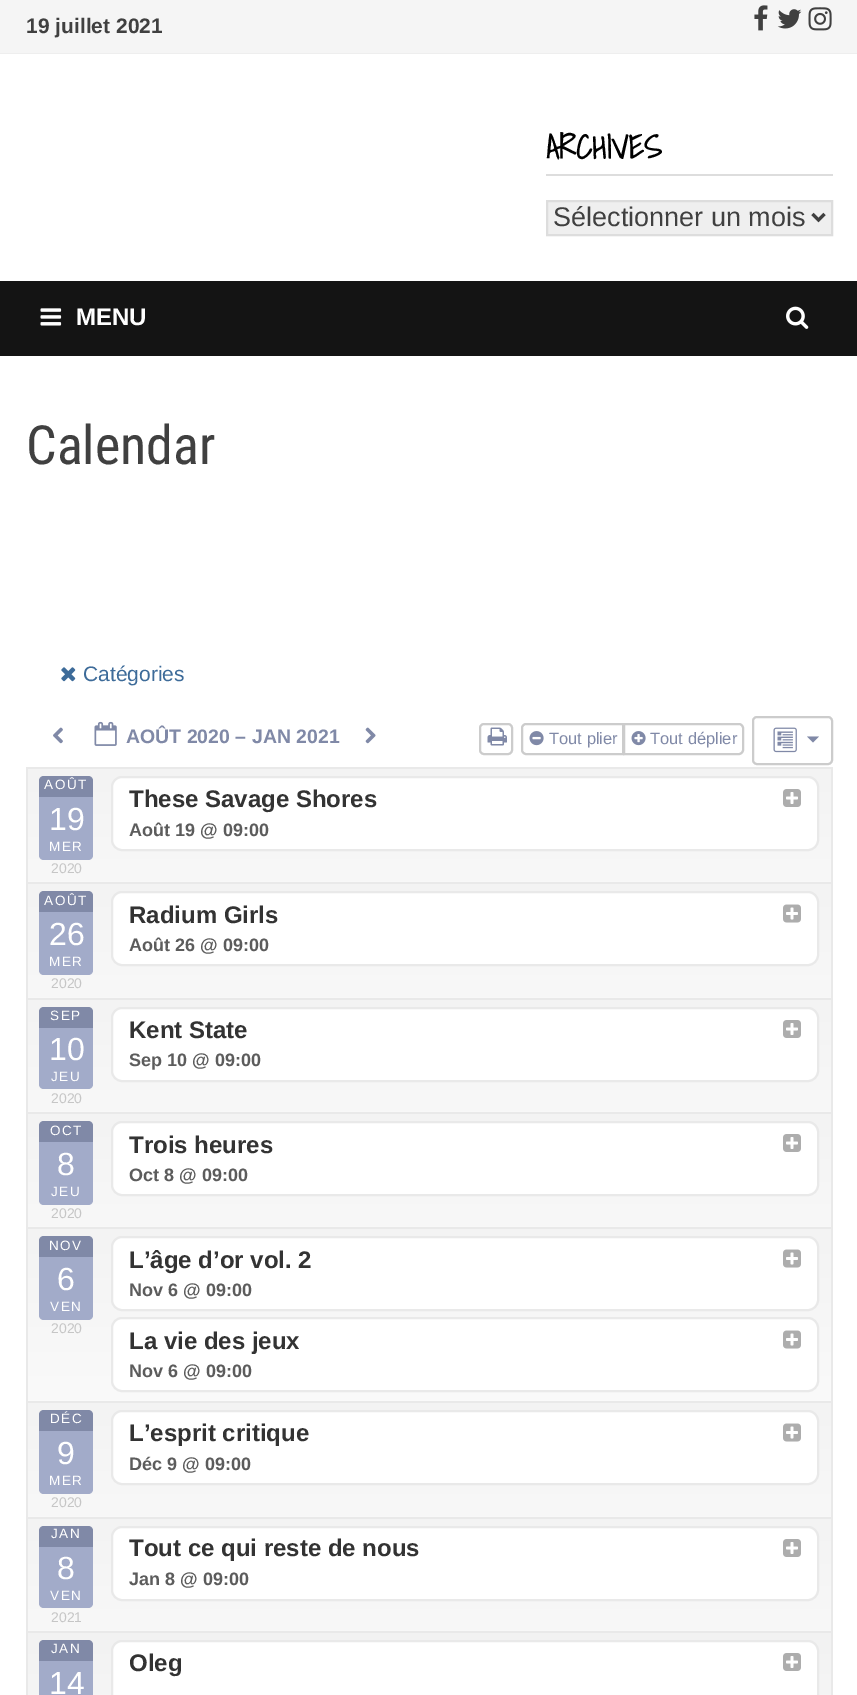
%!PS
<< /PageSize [857 1695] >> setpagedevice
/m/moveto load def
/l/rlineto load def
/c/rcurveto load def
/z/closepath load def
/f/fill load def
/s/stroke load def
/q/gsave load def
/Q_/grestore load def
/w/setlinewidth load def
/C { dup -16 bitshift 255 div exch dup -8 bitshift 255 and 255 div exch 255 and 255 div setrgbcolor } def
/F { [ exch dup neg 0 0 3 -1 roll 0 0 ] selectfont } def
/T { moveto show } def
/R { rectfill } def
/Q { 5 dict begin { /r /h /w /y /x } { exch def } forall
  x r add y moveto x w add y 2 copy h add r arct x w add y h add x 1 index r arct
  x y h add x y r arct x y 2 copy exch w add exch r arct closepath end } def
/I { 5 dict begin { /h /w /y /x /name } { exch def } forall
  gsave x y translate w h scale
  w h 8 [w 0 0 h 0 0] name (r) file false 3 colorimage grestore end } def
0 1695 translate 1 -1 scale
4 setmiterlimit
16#FFFFFF C
0 0 857 1695 R
16#F5F5F5 C
0 0 857 53 R
16#EEEEEE C
0 53 857 1 R
/LiberationSans-Bold 21 F
16#404040 C
(19 juillet 2021) 26 33 T
(1.rgb) 754 5 14 26 I
(2.rgb) 777 9 25 20 I
(3.rgb) 808 7 24 24 I
16#DDDDDD C
546 174 287 2 R
/ShadowsIntoLight-Bold 33 F
16#000000 C
(ARCHIVES) 546 159 T
16#EFEFEF C
547 201 m 285 0 l 0 34 l -285 0 l z q f Q_
16#DDDDDD C
2 w
s
16#404040 C
3 w
812.5 214 m 6 6 l 6 -6 l s
/LiberationSans-Regular 27 F
(Sélectionner un mois) 553 226 T
16#141414 C
0 281 857 75 R
(4.rgb) 40 308 22 18 I
/LiberationSans-Bold 24 F
16#FFFFFF C
(MENU) 76 325 T
(5.rgb) 786 306 23 23 I
/RobotoCondensed-Regular 54 F
16#404040 C
(Calendar) 26 464 T
(6.rgb) 61 667 15 15 I
/LiberationSans-Regular 21 F
16#3D6B99 C
(Catégories) 83 681 T
(7.rgb) 53 727 10 17 I
(8.rgb) 94 721 23 25 I
/LiberationSans-Bold 19.5 F
16#8089A7 C
(AOÛT 2020 – JAN 2021) 126 743 T
(9.rgb) 365 727 11 17 I
16#CCCCCC C
2 w
480 724 32 30 4 Q s
(10.rgb) 487 727 20 19 I
526 724 m 97 0 l 0 30 l -97 0 l -2 0 -4 -2 -4 -4 c 0 -22 l 0 -2 2 -4 4 -4 c z s
(11.rgb) 529 731 15 15 I
/LiberationSans-Regular 16.5 F
16#8089A7 C
(Tout plier) 549 744 T
16#FFFFFF C
624 724 m 115 0 l 2 0 4 2 4 4 c 0 22 l 0 2 -2 4 -4 4 c -115 0 l z q f Q_
16#CCCCCC C
s
(12.rgb) 631 731 15 15 I
16#8089A7 C
(Tout déplier) 650 744 T
16#CCCCCC C
753 717 79 47 4 Q s
(13.rgb) 773 727 24 26 I
16#8089A7 C
807 736.5 m 12 0 l -6 6 l z f
q 28 769 m 803 0 l 0 113 l -803 0 l z clip newpath
<< /ShadingType 2 /ColorSpace /DeviceRGB /Coords [429 768 429 1068] /Extend [true true] /Function << /FunctionType 2 /Domain [0 1] /C0 [.953 .953 .953] /C1 [1 1 1] /N 1 >> >> shfill Q_
16#E9E9E9 C
26 767 807 2 R
831 767 2 115 R
26 767 2 115 R
16#8089A7 C
44 776 m 44 0 l 3 0 5 2 5 5 c 0 17 l -54 0 l 0 -17 l 0 -3 2 -5 5 -5 c z f
/LiberationSans-Regular 13.5 F
16#FFFFFF C
44 789 m 1.5 0 (AOÛT) ashow
16#A2ABC9 C
39 797 54 39 R
/LiberationSans-Regular 32 F
16#FFFFFF C
(19) 49 830 T
16#A2ABC9 C
39 836 m 54 0 l 0 19 l 0 3 -2 5 -5 5 c -44 0 l -3 0 -5 -2 -5 -5 c z f
/LiberationSans-Regular 13.5 F
16#FFFFFF C
49 851 m 1.5 0 (MER) ashow
/LiberationSans-Regular 14 F
16#C6C6C6 C
(2020) 51 873 T
16#FFFFFF C
112 777 706 73 10 Q q f Q_
16#E9E9E9 C
s
/LiberationSans-Bold 24 F
16#333333 C
(These Savage Shores) 129 807 T
(14.rgb) 783 789 18 18 I
/LiberationSans-Bold 18 F
16#5C5C5C C
(Août 19 @ 09:00) 129 836 T
q 28 884 m 803 0 l 0 114 l -803 0 l z clip newpath
<< /ShadingType 2 /ColorSpace /DeviceRGB /Coords [429 884 429 1183] /Extend [true true] /Function << /FunctionType 2 /Domain [0 1] /C0 [.953 .953 .953] /C1 [1 1 1] /N 1 >> >> shfill Q_
16#E9E9E9 C
26 882 807 2 R
831 882 2 116 R
26 882 2 116 R
16#8089A7 C
44 891 m 44 0 l 3 0 5 2 5 5 c 0 18 l -54 0 l 0 -18 l 0 -3 2 -5 5 -5 c z f
/LiberationSans-Regular 13.5 F
16#FFFFFF C
44 905 m 1.5 0 (AOÛT) ashow
16#A2ABC9 C
39 912 54 39 R
/LiberationSans-Regular 32 F
16#FFFFFF C
(26) 49 945 T
16#A2ABC9 C
39 951 m 54 0 l 0 19 l 0 3 -2 5 -5 5 c -44 0 l -3 0 -5 -2 -5 -5 c z f
/LiberationSans-Regular 13.5 F
16#FFFFFF C
49 966 m 1.5 0 (MER) ashow
/LiberationSans-Regular 14 F
16#C6C6C6 C
(2020) 51 988 T
16#FFFFFF C
112 892 706 73 10 Q q f Q_
16#E9E9E9 C
s
/LiberationSans-Bold 24 F
16#333333 C
(Radium Girls) 129 923 T
(15.rgb) 783 904 18 19 I
/LiberationSans-Bold 18 F
16#5C5C5C C
(Août 26 @ 09:00) 129 951 T
q 28 1000 m 803 0 l 0 112 l -803 0 l z clip newpath
<< /ShadingType 2 /ColorSpace /DeviceRGB /Coords [429 999 429 1299] /Extend [true true] /Function << /FunctionType 2 /Domain [0 1] /C0 [.953 .953 .953] /C1 [1 1 1] /N 1 >> >> shfill Q_
16#E9E9E9 C
26 998 807 2 R
831 998 2 114 R
26 998 2 114 R
16#8089A7 C
44 1007 m 44 0 l 3 0 5 2 5 5 c 0 17 l -54 0 l 0 -17 l 0 -3 2 -5 5 -5 c z f
/LiberationSans-Regular 13.5 F
16#FFFFFF C
50 1020 m 1.5 0 (SEP) ashow
16#A2ABC9 C
39 1028 54 39 R
/LiberationSans-Regular 32 F
16#FFFFFF C
(10) 49 1060 T
16#A2ABC9 C
39 1067 m 54 0 l 0 17 l 0 3 -2 5 -5 5 c -44 0 l -3 0 -5 -2 -5 -5 c z f
/LiberationSans-Regular 13.5 F
16#FFFFFF C
51 1081 m 1.5 0 (JEU) ashow
/LiberationSans-Regular 14 F
16#C6C6C6 C
(2020) 51 1103 T
16#FFFFFF C
112 1008 706 73 10 Q q f Q_
16#E9E9E9 C
s
/LiberationSans-Bold 24 F
16#333333 C
(Kent State) 129 1038 T
(14.rgb) 783 1020 18 18 I
/LiberationSans-Bold 18 F
16#5C5C5C C
(Sep 10 @ 09:00) 129 1066 T
q 28 1114 m 803 0 l 0 113 l -803 0 l z clip newpath
<< /ShadingType 2 /ColorSpace /DeviceRGB /Coords [429 1113 429 1413] /Extend [true true] /Function << /FunctionType 2 /Domain [0 1] /C0 [.953 .953 .953] /C1 [1 1 1] /N 1 >> >> shfill Q_
16#E9E9E9 C
26 1112 807 2 R
831 1112 2 115 R
26 1112 2 115 R
16#8089A7 C
44 1121 m 44 0 l 3 0 5 2 5 5 c 0 17 l -54 0 l 0 -17 l 0 -3 2 -5 5 -5 c z f
/LiberationSans-Regular 13.5 F
16#FFFFFF C
50 1135 m 1.5 0 (OCT) ashow
16#A2ABC9 C
39 1142 54 39 R
/LiberationSans-Regular 32 F
16#FFFFFF C
(8) 57 1175 T
16#A2ABC9 C
39 1181 m 54 0 l 0 19 l 0 3 -2 5 -5 5 c -44 0 l -3 0 -5 -2 -5 -5 c z f
/LiberationSans-Regular 13.5 F
16#FFFFFF C
51 1196 m 1.5 0 (JEU) ashow
/LiberationSans-Regular 14 F
16#C6C6C6 C
(2020) 51 1218 T
16#FFFFFF C
112 1122 706 73 10 Q q f Q_
16#E9E9E9 C
s
/LiberationSans-Bold 24 F
16#333333 C
(Trois heures) 129 1153 T
(14.rgb) 783 1134 18 18 I
/LiberationSans-Bold 18 F
16#5C5C5C C
(Oct 8 @ 09:00) 129 1181 T
q 28 1229 m 803 0 l 0 172 l -803 0 l z clip newpath
<< /ShadingType 2 /ColorSpace /DeviceRGB /Coords [429 1229 429 1528] /Extend [true true] /Function << /FunctionType 2 /Domain [0 1] /C0 [.953 .953 .953] /C1 [1 1 1] /N 1 >> >> shfill Q_
16#E9E9E9 C
26 1227 807 2 R
831 1227 2 174 R
26 1227 2 174 R
16#8089A7 C
44 1236 m 44 0 l 3 0 5 2 5 5 c 0 18 l -54 0 l 0 -18 l 0 -3 2 -5 5 -5 c z f
/LiberationSans-Regular 13.5 F
16#FFFFFF C
49 1250 m 1.5 0 (NOV) ashow
16#A2ABC9 C
39 1257 54 39 R
/LiberationSans-Regular 32 F
16#FFFFFF C
(6) 57 1290 T
16#A2ABC9 C
39 1296 m 54 0 l 0 19 l 0 3 -2 5 -5 5 c -44 0 l -3 0 -5 -2 -5 -5 c z f
/LiberationSans-Regular 13.5 F
16#FFFFFF C
50 1311 m 1.5 0 (VEN) ashow
/LiberationSans-Regular 14 F
16#C6C6C6 C
(2020) 51 1333 T
16#FFFFFF C
112 1237 706 73 10 Q q f Q_
16#E9E9E9 C
s
/LiberationSans-Bold 24 F
16#333333 C
(L’âge d’or vol. 2) 129 1268 T
(15.rgb) 783 1249 18 19 I
/LiberationSans-Bold 18 F
16#5C5C5C C
(Nov 6 @ 09:00) 129 1296 T
16#FFFFFF C
112 1318 706 73 10 Q q f Q_
16#E9E9E9 C
s
/LiberationSans-Bold 24 F
16#333333 C
(La vie des jeux) 129 1349 T
(15.rgb) 783 1330 18 19 I
/LiberationSans-Bold 18 F
16#5C5C5C C
(Nov 6 @ 09:00) 129 1377 T
q 28 1403 m 803 0 l 0 114 l -803 0 l z clip newpath
<< /ShadingType 2 /ColorSpace /DeviceRGB /Coords [429 1403 429 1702] /Extend [true true] /Function << /FunctionType 2 /Domain [0 1] /C0 [.953 .953 .953] /C1 [1 1 1] /N 1 >> >> shfill Q_
16#E9E9E9 C
26 1401 807 2 R
831 1401 2 116 R
26 1401 2 116 R
16#8089A7 C
44 1410 m 44 0 l 3 0 5 2 5 5 c 0 18 l -54 0 l 0 -18 l 0 -3 2 -5 5 -5 c z f
/LiberationSans-Regular 13.5 F
16#FFFFFF C
50 1423 m 1.5 0 (DÉC) ashow
16#A2ABC9 C
39 1431 54 39 R
/LiberationSans-Regular 32 F
16#FFFFFF C
(9) 57 1464 T
16#A2ABC9 C
39 1470 m 54 0 l 0 19 l 0 3 -2 5 -5 5 c -44 0 l -3 0 -5 -2 -5 -5 c z f
/LiberationSans-Regular 13.5 F
16#FFFFFF C
49 1485 m 1.5 0 (MER) ashow
/LiberationSans-Regular 14 F
16#C6C6C6 C
(2020) 51 1507 T
16#FFFFFF C
112 1411 706 73 10 Q q f Q_
16#E9E9E9 C
s
/LiberationSans-Bold 24 F
16#333333 C
(L’esprit critique) 129 1441 T
(15.rgb) 783 1423 18 19 I
/LiberationSans-Bold 18 F
16#5C5C5C C
(Déc 9 @ 09:00) 129 1470 T
q 28 1519 m 803 0 l 0 112 l -803 0 l z clip newpath
<< /ShadingType 2 /ColorSpace /DeviceRGB /Coords [429 1518 429 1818] /Extend [true true] /Function << /FunctionType 2 /Domain [0 1] /C0 [.953 .953 .953] /C1 [1 1 1] /N 1 >> >> shfill Q_
16#E9E9E9 C
26 1517 807 2 R
831 1517 2 114 R
26 1517 2 114 R
16#8089A7 C
44 1526 m 44 0 l 3 0 5 2 5 5 c 0 17 l -54 0 l 0 -17 l 0 -3 2 -5 5 -5 c z f
/LiberationSans-Regular 13.5 F
16#FFFFFF C
51 1538 m 1.5 0 (JAN) ashow
16#A2ABC9 C
39 1547 54 39 R
/LiberationSans-Regular 32 F
16#FFFFFF C
(8) 57 1579 T
16#A2ABC9 C
39 1586 m 54 0 l 0 17 l 0 3 -2 5 -5 5 c -44 0 l -3 0 -5 -2 -5 -5 c z f
/LiberationSans-Regular 13.5 F
16#FFFFFF C
50 1600 m 1.5 0 (VEN) ashow
/LiberationSans-Regular 14 F
16#C6C6C6 C
(2021) 51 1622 T
16#FFFFFF C
112 1527 706 73 10 Q q f Q_
16#E9E9E9 C
s
/LiberationSans-Bold 24 F
16#333333 C
(Tout ce qui reste de nous) 129 1556 T
(14.rgb) 783 1539 18 18 I
/LiberationSans-Bold 18 F
16#5C5C5C C
(Jan 8 @ 09:00) 129 1585 T
q 28 1633 m 803 0 l 0 62 l -803 0 l z clip newpath
<< /ShadingType 2 /ColorSpace /DeviceRGB /Coords [429 1632 429 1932] /Extend [true true] /Function << /FunctionType 2 /Domain [0 1] /C0 [.949 .949 .949] /C1 [1 1 1] /N 1 >> >> shfill Q_
16#E9E9E9 C
26 1631 807 2 R
831 1631 2 64 R
26 1631 2 64 R
16#8089A7 C
44 1640 m 44 0 l 3 0 5 2 5 5 c 0 17 l -54 0 l 0 -17 l 0 -3 2 -5 5 -5 c z f
/LiberationSans-Regular 13.5 F
16#FFFFFF C
51 1653 m 1.5 0 (JAN) ashow
16#A2ABC9 C
39 1661 54 34 R
/LiberationSans-Regular 32 F
16#FFFFFF C
(14) 49 1694 T
112 1641 706 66 10 Q q f Q_
16#E9E9E9 C
s
/LiberationSans-Bold 24 F
16#333333 C
(Oleg) 129 1671 T
(14.rgb) 783 1653 18 18 I
showpage
